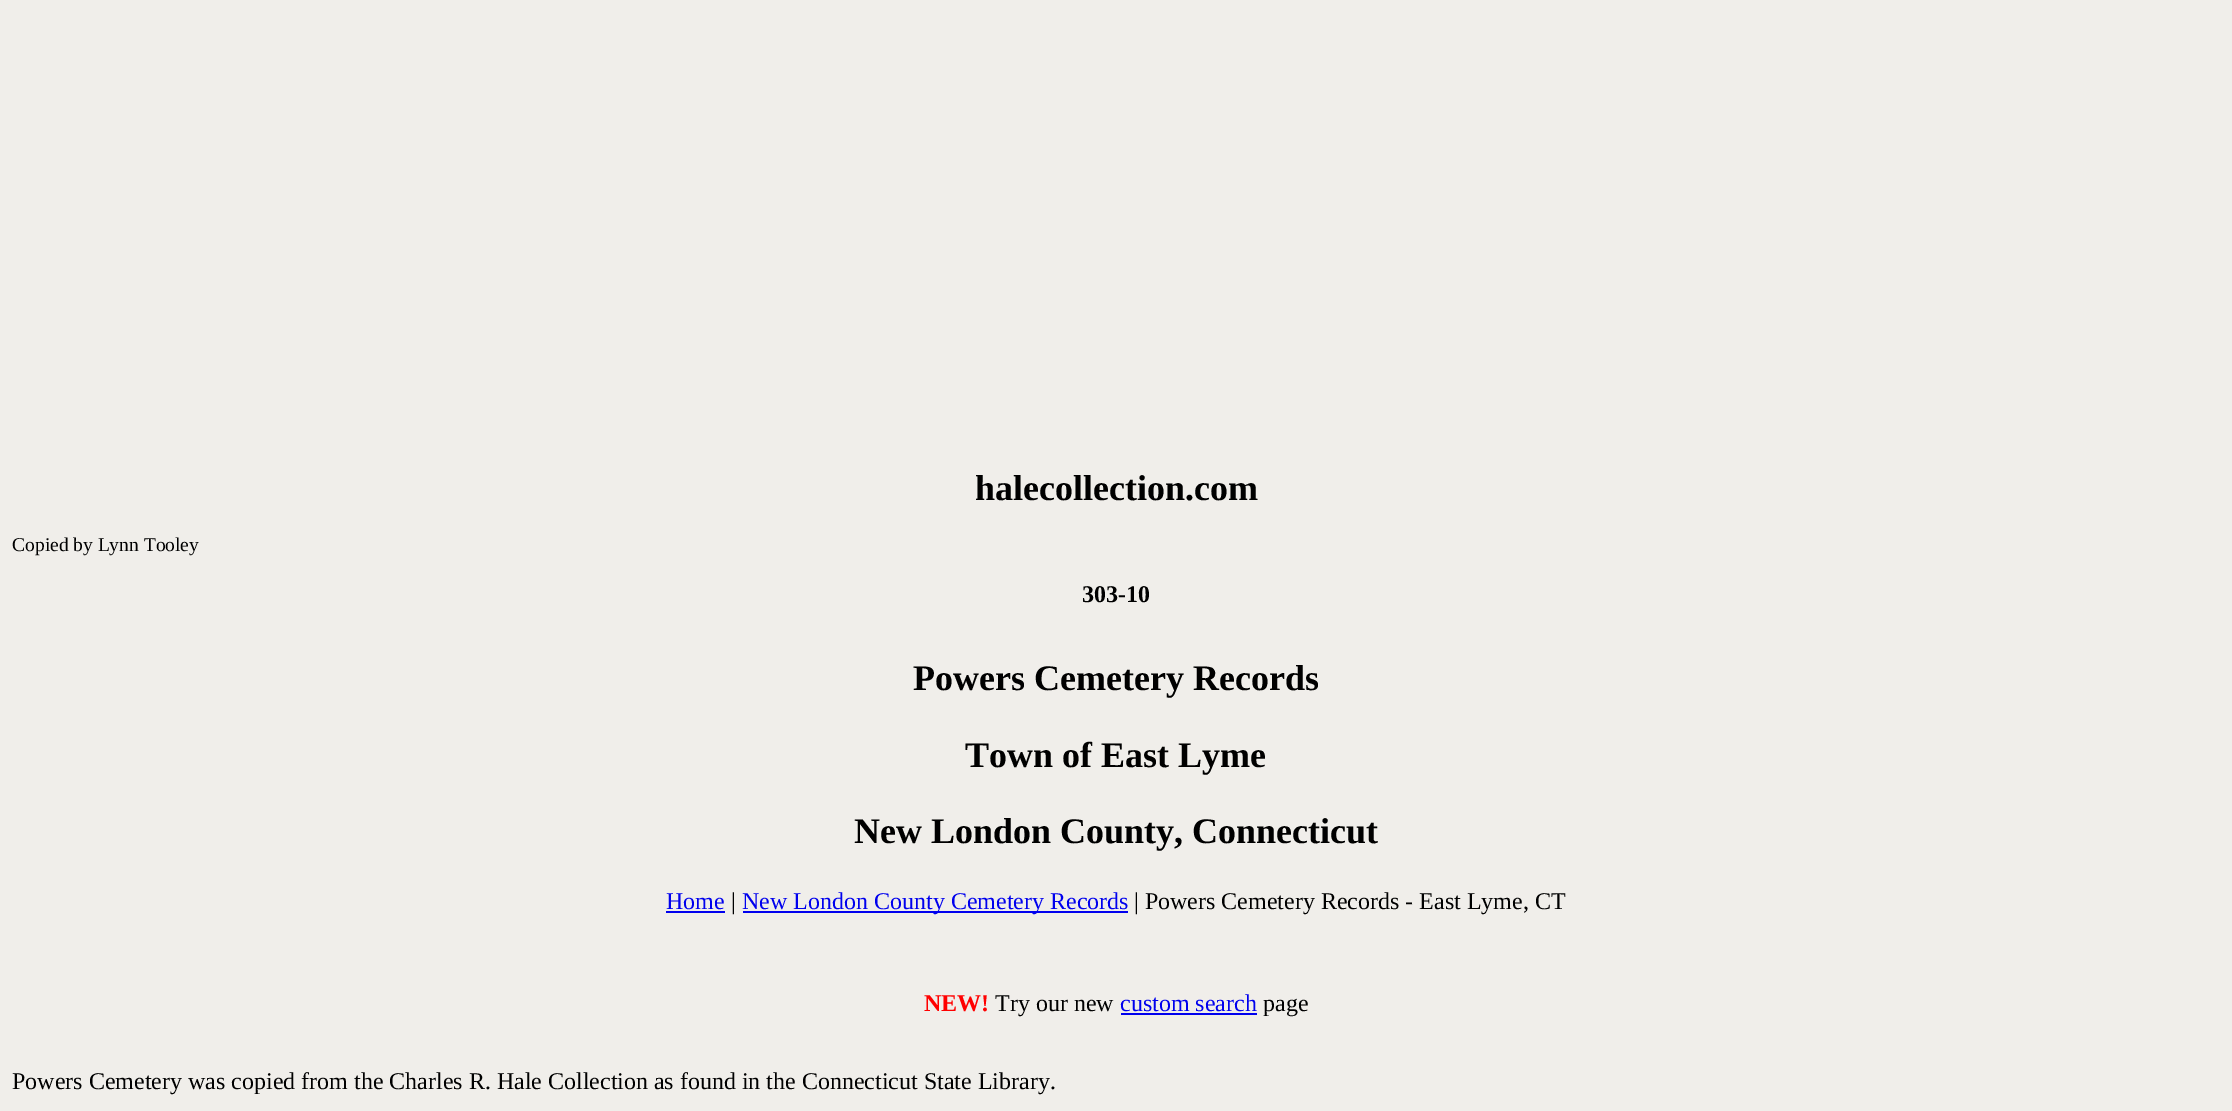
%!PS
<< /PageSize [2232 1111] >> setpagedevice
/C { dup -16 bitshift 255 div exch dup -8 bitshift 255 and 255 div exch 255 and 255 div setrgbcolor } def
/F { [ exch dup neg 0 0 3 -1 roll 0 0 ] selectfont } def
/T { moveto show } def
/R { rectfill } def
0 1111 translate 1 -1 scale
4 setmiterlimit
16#F0EEEA C
0 0 2232 1111 R
/LiberationSerif-Bold 36 F
16#000000 C
(halecollection.com) 975 500 T
/LiberationSerif-Regular 19.5 F
(Copied by Lynn Tooley) 12 551 T
/LiberationSerif-Bold 24 F
(303-10) 1082 602 T
/LiberationSerif-Bold 36 F
(Powers Cemetery Records) 913 690 T
(Town of East Lyme) 965 767 T
(New London County, Connecticut) 854 843 T
/LiberationSerif-Regular 24 F
16#0000EE C
(Home) 666 909 T
666 911 59 2 R
16#000000 C
(|) 731 909 T
16#0000EE C
743 911 385 2 R
(New London County Cemetery Records) 742 909 T
16#000000 C
(| Powers Cemetery Records - East Lyme, CT) 1134 909 T
/LiberationSerif-Bold 24 F
16#FF0000 C
(NEW!) 924 1011 T
/LiberationSerif-Regular 24 F
16#000000 C
(Try our new) 995 1011 T
16#0000EE C
(custom search) 1120 1011 T
1121 1013 136 2 R
16#000000 C
(page) 1263 1011 T
(Powers Cemetery was copied from the Charles R. Hale Collection as found in the Connecticut State Library.) 12 1089 T
showpage
